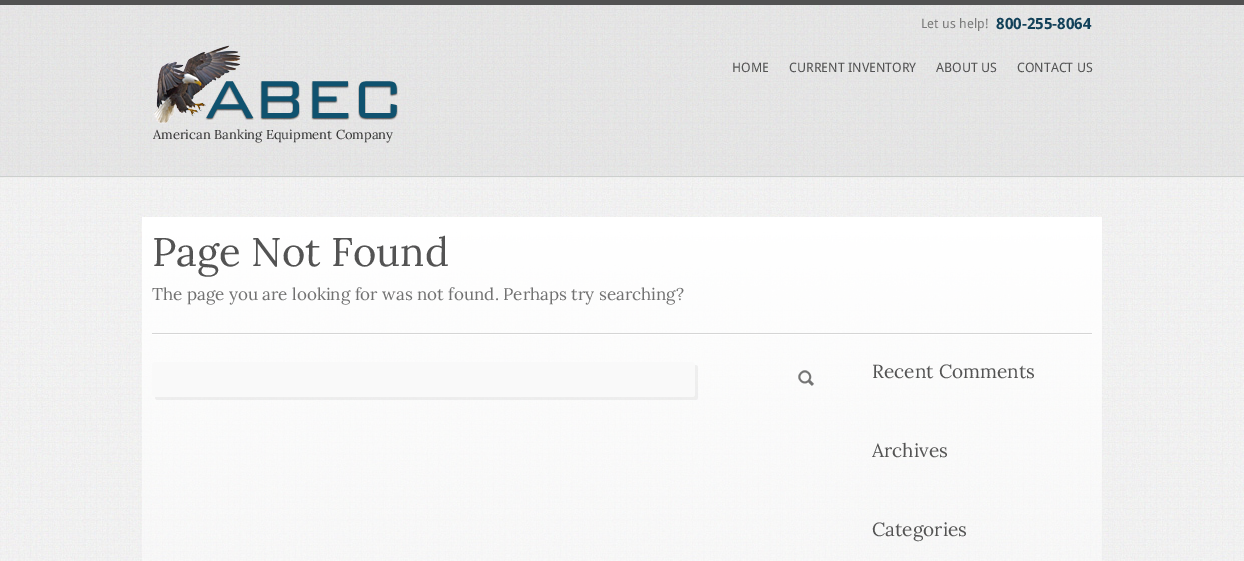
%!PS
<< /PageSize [1244 561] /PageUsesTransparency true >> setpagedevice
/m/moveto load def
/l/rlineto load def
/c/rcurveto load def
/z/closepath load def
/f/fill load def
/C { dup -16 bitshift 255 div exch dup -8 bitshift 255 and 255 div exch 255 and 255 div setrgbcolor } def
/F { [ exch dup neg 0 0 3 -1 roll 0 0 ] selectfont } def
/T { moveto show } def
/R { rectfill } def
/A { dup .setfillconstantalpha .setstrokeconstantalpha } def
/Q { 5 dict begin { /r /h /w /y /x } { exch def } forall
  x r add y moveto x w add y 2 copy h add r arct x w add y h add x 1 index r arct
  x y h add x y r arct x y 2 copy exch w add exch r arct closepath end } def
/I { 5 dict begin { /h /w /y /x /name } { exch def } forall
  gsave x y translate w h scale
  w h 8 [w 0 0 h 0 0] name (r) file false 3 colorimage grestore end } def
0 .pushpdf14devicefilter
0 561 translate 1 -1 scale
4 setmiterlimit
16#FFFFFF C
0 0 1244 561 R
(1.rgb) 0 5 1244 556 I
0.05 A
16#000000 C
0 5 1244 171 R
1 A
16#515151 C
0 0 1244 5 R
/DroidSans-Regular 13 F
16#7B7B7B C
(Let us help!) 921 28 T
/DroidSans-Bold 15.5 F
16#124159 C
(800-255-8064) 996 29 T
/DroidSans-Regular 13 F
16#535353 C
(HOME) 732 72 T
(CURRENT INVENTORY) 789 72 T
(ABOUT US) 936 72 T
(CONTACT US) 1017 72 T
(2.rgb) 153 45 245 79 I
/Lora-Regular 13 F
16#333333 C
(American Banking Equipment Company) 153 139 T
16#CCCFCD C
0 176 1244 1 R
16#FFFFFF C
152 334 940 1 R
/Lora-Regular 40 F
16#535353 C
(Page Not Found) 152 266 T
/Lora-Regular 17 F
16#717171 C
(The page you are looking for was not found. Perhaps try searching?) 152 300 T
16#D5D5D5 C
152 333 940 1 R
0.05 A
16#000000 C
155 397 m 0 2 1 3 3 3 c 537 0 l 2 0 3 -1 3 -3 c 0 -29 l 0 -2 -1 -3 -3 -3 c 0 29 l 0 2 -1 3 -3 3 c z f
1 A
16#F9F9F9 C
152 362 543 35 3 Q f
(3.rgb) 798 370 16 16 I
/Lora-Regular 19 F
16#535353 C
(Recent Comments) 872 378 T
(Archives) 872 457 T
(Categories) 872 536 T
.poppdf14devicefilter showpage
